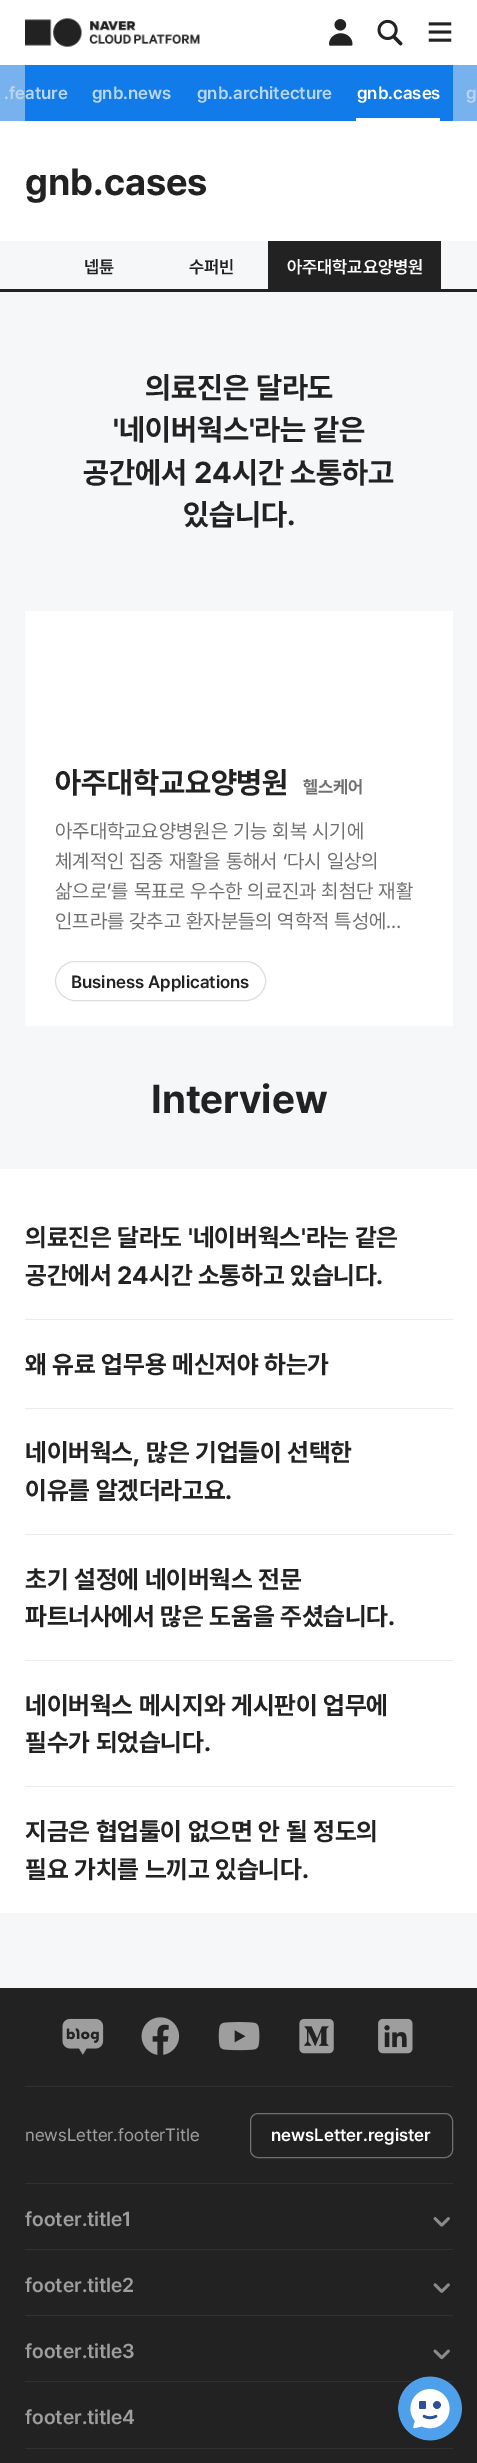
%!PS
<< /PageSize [477 2463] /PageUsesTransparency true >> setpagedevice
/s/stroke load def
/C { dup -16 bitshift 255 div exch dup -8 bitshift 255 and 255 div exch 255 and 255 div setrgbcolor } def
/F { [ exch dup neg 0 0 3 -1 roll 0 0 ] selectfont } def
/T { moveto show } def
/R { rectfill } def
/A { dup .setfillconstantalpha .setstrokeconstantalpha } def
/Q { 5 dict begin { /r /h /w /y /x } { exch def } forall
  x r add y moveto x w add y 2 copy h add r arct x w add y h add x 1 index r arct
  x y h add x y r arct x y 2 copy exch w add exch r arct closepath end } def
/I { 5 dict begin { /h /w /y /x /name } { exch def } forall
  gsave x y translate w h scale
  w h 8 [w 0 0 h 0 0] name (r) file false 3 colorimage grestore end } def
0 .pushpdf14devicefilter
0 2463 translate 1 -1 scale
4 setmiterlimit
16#FFFFFF C
0 0 477 2463 R
(1.rgb) 25 18 175 29 I
(2.rgb) 329 19 24 27 I
(3.rgb) 377 19 26 27 I
(4.rgb) 428 22 24 20 I
16#117CE9 C
0 65 453 56 R
16#77B2EE C
453 65 24 56 R
/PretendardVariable-SemiBold 17.5 F
16#BBD6F2 C
(.feature) 4 99 T
0.6 A
0 65 25 56 R
1 A
(gnb.news) 92 99 T
(gnb.architecture) 197 99 T
16#FFFFFF C
(gnb.cases) 357 99 T
16#BBD6F2 C
(g) 466 99 T
16#FFFFFF C
356 118 84 3 R
/PretendardVariable-Bold 37.5 F
16#222222 C
(gnb.cases) 25 195 T
16#F6F7F8 C
0 241 477 48 R
/PretendardVariable-SemiBold 17.5 F
16#222222 C
(넵튠) 84 273 T
(수퍼빈) 189 273 T
268 241 173 48 R
16#FFFFFF C
(아주대학교요양병원) 287 273 T
16#222222 C
0 289 477 3 R
16#F6F7F8 C
0 292 477 877 R
/PretendardVariable-Bold 30 F
16#222222 C
(의료진은 달라도) 145 398 T
('네이버웍스'라는 같은) 113 440 T
(공간에서 24시간 소통하고) 83 483 T
(있습니다.) 183 525 T
16#FFFFFF C
25 611 428 415 R
16#222222 C
(아주대학교요양병원) 55 793 T
/PretendardVariable-Bold 17.5 F
16#707070 C
(헬스케어) 303 793 T
/PretendardVariable-Regular 20 F
(아주대학교요양병원은 기능 회복 시기에) 55 838 T
(체계적인 집중 재활을 통해서 ‘다시 일상의) 55 868 T
(삶으로’를 목표로 우수한 의료진과 최첨단 재활) 55 898 T
(인프라를 갖추고 환자분들의 역학적 특성에…) 55 928 T
16#DEDEDE C
55.5 961.5 210 39 19.5 Q s
/PretendardVariable-SemiBold 17.5 F
16#222222 C
(Business Applications) 71 988 T
/PretendardVariable-Bold 40 F
(Interview) 151 1113 T
16#EAEBEE C
25 1319 428 1 R
/PretendardVariable-Bold 25 F
16#222222 C
(의료진은 달라도 '네이버웍스'라는 같은) 25 1246 T
(공간에서 24시간 소통하고 있습니다.) 25 1284 T
16#EAEBEE C
25 1408 428 1 R
16#222222 C
(왜 유료 업무용 메신저야 하는가) 25 1373 T
16#EAEBEE C
25 1534 428 1 R
16#222222 C
(네이버웍스, 많은 기업들이 선택한) 25 1461 T
(이유를 알겠더라고요.) 25 1499 T
16#EAEBEE C
25 1660 428 1 R
16#222222 C
(초기 설정에 네이버웍스 전문) 25 1588 T
(파트너사에서 많은 도움을 주셨습니다.) 25 1625 T
16#EAEBEE C
25 1786 428 1 R
16#222222 C
(네이버웍스 메시지와 게시판이 업무에) 25 1714 T
(필수가 되었습니다.) 25 1751 T
(지금은 협업툴이 없으면 안 될 정도의) 25 1840 T
(필요 가치를 느끼고 있습니다.) 25 1878 T
16#F6F7F8 C
0 1913 477 75 R
16#222222 C
0 1988 477 475 R
16#303030 C
25 2183 428 1 R
25 2086 428 1 R
(5.rgb) 62 2018 42 37 I
(6.rgb) 141 2017 39 38 I
(7.rgb) 218 2022 42 29 I
(8.rgb) 299 2018 35 36 I
(9.rgb) 378 2018 35 36 I
/PretendardVariable-Regular 17.5 F
16#9E9E9E C
(newsLetter.footerTitle) 25 2141 T
16#707070 C
250.5 2113.5 202 44 7.5 Q s
/PretendardVariable-SemiBold 17.5 F
16#FFFFFF C
(newsLetter.register) 271 2141 T
16#303030 C
25 2249 428 1 R
/PretendardVariable-SemiBold 20 F
16#9E9E9E C
(footer.title1) 25 2226 T
(10.rgb) 433 2217 17 10 I
16#303030 C
25 2315 428 1 R
16#9E9E9E C
(footer.title2) 25 2292 T
(11.rgb) 433 2283 17 10 I
16#303030 C
25 2381 428 1 R
16#9E9E9E C
(footer.title3) 25 2358 T
(12.rgb) 433 2349 17 11 I
16#303030 C
25 2448 428 1 R
16#9E9E9E C
(footer.title4) 25 2424 T
(13.rgb) 398 2376 64 65 I
.poppdf14devicefilter showpage
